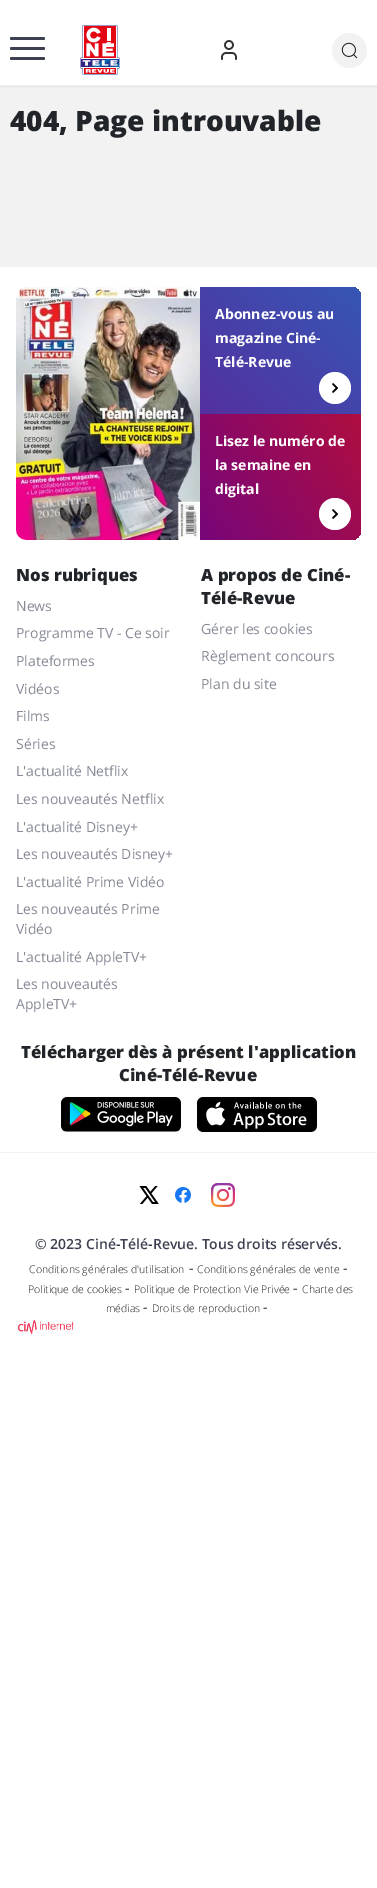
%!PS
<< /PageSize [377 1888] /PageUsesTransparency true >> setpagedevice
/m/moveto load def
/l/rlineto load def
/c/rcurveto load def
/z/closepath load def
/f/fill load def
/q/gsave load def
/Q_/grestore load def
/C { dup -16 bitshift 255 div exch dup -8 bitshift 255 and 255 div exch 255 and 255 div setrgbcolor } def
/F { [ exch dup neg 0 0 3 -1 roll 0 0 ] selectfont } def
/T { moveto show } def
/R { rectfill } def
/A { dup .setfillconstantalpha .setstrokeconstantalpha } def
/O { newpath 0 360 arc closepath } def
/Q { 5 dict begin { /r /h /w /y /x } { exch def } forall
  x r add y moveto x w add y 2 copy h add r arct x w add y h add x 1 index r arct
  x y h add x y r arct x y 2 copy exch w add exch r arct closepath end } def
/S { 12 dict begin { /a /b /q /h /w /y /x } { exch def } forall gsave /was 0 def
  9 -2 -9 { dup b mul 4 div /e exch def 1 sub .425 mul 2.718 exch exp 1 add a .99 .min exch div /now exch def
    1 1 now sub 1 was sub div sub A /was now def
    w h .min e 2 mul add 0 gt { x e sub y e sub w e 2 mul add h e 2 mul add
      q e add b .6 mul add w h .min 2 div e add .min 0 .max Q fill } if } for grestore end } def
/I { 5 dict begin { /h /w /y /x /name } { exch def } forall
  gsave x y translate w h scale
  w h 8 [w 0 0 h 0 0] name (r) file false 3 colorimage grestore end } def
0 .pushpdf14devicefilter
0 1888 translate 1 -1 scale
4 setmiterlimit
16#FFFFFF C
0 0 377 1888 R
16#F2F2F2 C
0 86 377 181 R
q
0 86 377 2 rectclip
16#E3E4E7 C
0 1 377 86 0 .5 1 S
Q_
16#3C4050 C
10 37 35 3 1.5 Q f
10 47 35 3 1.5 Q f
10 57 35 3 1.5 Q f
(1.rgb) 80 25 40 50 I
(2.rgb) 221 40 16 20 I
16#F2F2F2 C
349.5 50.5 17.5 O f
(3.rgb) 341 42 17 17 I
0 85 377 1 R
/OpenSans-ExtraBold 28 F
16#212529 C
(404, Page introuvable) 10 131 T
(4.rgb) 16 287 184 253 I
q 200 287 m 151 0 l 5.5 0 10 4.5 10 10 c 0 117 l -161 0 l z clip newpath
<< /ShadingType 2 /ColorSpace /DeviceRGB /Coords [33 613 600 12] /Extend [true true] /Function << /FunctionType 2 /Domain [0 1] /C0 [.478 0 .518] /C1 [0 .604 .859] /N 1 >> >> shfill Q_
/OpenSans-Bold 14 F
16#FFFFFF C
(Abonnez-vous au) 215 319 T
(magazine Ciné-) 215 343 T
(Télé-Revue) 215 367 T
335 388 16 O f
(5.rgb) 332 383 6 10 I
q 200 414 m 161 0 l 0 116 l 0 5.5 -4.5 10 -10 10 c -151 0 l z clip newpath
<< /ShadingType 2 /ColorSpace /DeviceRGB /Coords [61 605 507 344] /Extend [true true] /Function << /FunctionType 2 /Domain [0 1] /C0 [.302 0 .651] /C1 [.863 .082 .071] /N 1 >> >> shfill Q_
(Lisez le numéro de) 215 446 T
(la semaine en) 215 470 T
(digital) 215 494 T
335 514 16 O f
(5.rgb) 332 509 6 10 I
/OpenSans-ExtraBold 16.75 F
16#212529 C
(Nos rubriques) 16 581 T
/OpenSans-Regular 14 F
16#878A96 C
(News) 16 611 T
(Programme TV - Ce soir) 16 638 T
(Plateformes) 16 666 T
(Vidéos) 16 694 T
(Films) 16 721 T
(Séries) 16 749 T
(L'actualité Netflix) 16 776 T
(Les nouveautés Netflix) 16 804 T
(L'actualité Disney+) 16 832 T
(Les nouveautés Disney+) 16 859 T
(L'actualité Prime Vidéo) 16 887 T
(Les nouveautés Prime) 16 914 T
(Vidéo) 16 934 T
(L'actualité AppleTV+) 16 962 T
(Les nouveautés) 16 989 T
(AppleTV+) 16 1009 T
/OpenSans-ExtraBold 16.75 F
16#212529 C
(A propos de Ciné-) 201 581 T
(Télé-Revue) 201 604 T
/OpenSans-Regular 14 F
16#878A96 C
(Gérer les cookies) 201 634 T
(Règlement concours) 201 661 T
(Plan du site) 201 689 T
/OpenSans-ExtraBold 16.75 F
16#212529 C
(Télécharger dès à présent l'application) 21 1058 T
(Ciné-Télé-Revue) 119 1081 T
(6.rgb) 61 1097 120 35 I
(7.rgb) 197 1097 120 35 I
16#F3F3F5 C
0 1152 377 1 R
(8.rgb) 139 1186 20 18 I
(9.rgb) 175 1187 16 16 I
(10.rgb) 211 1183 24 24 I
/OpenSans-SemiBold 14 F
16#3C4050 C
(© 2023 Ciné-Télé-Revue. Tous droits réservés.) 35 1249 T
/OpenSans-Light 10.5 F
16#212529 C
(Conditions générales d'utilisation) 29 1273 T
/OpenSans-Regular 14 F
(-) 189 1273 T
/OpenSans-Light 10.5 F
(Conditions générales de vente) 197 1273 T
/OpenSans-Regular 14 F
(-) 343 1273 T
/OpenSans-Light 10.5 F
(Politique de cookies) 28 1293 T
/OpenSans-Regular 14 F
(-) 125 1293 T
/OpenSans-Light 10.5 F
(Politique de Protection Vie Privée) 134 1293 T
/OpenSans-Regular 14 F
(-) 293 1293 T
/OpenSans-Light 10.5 F
(Charte des) 302 1293 T
(médias) 106 1312 T
/OpenSans-Regular 14 F
(-) 143 1312 T
/OpenSans-Light 10.5 F
(Droits de reproduction) 152 1312 T
/OpenSans-Regular 14 F
(-) 263 1312 T
(11.rgb) 17 1320 57 14 I
.poppdf14devicefilter showpage
